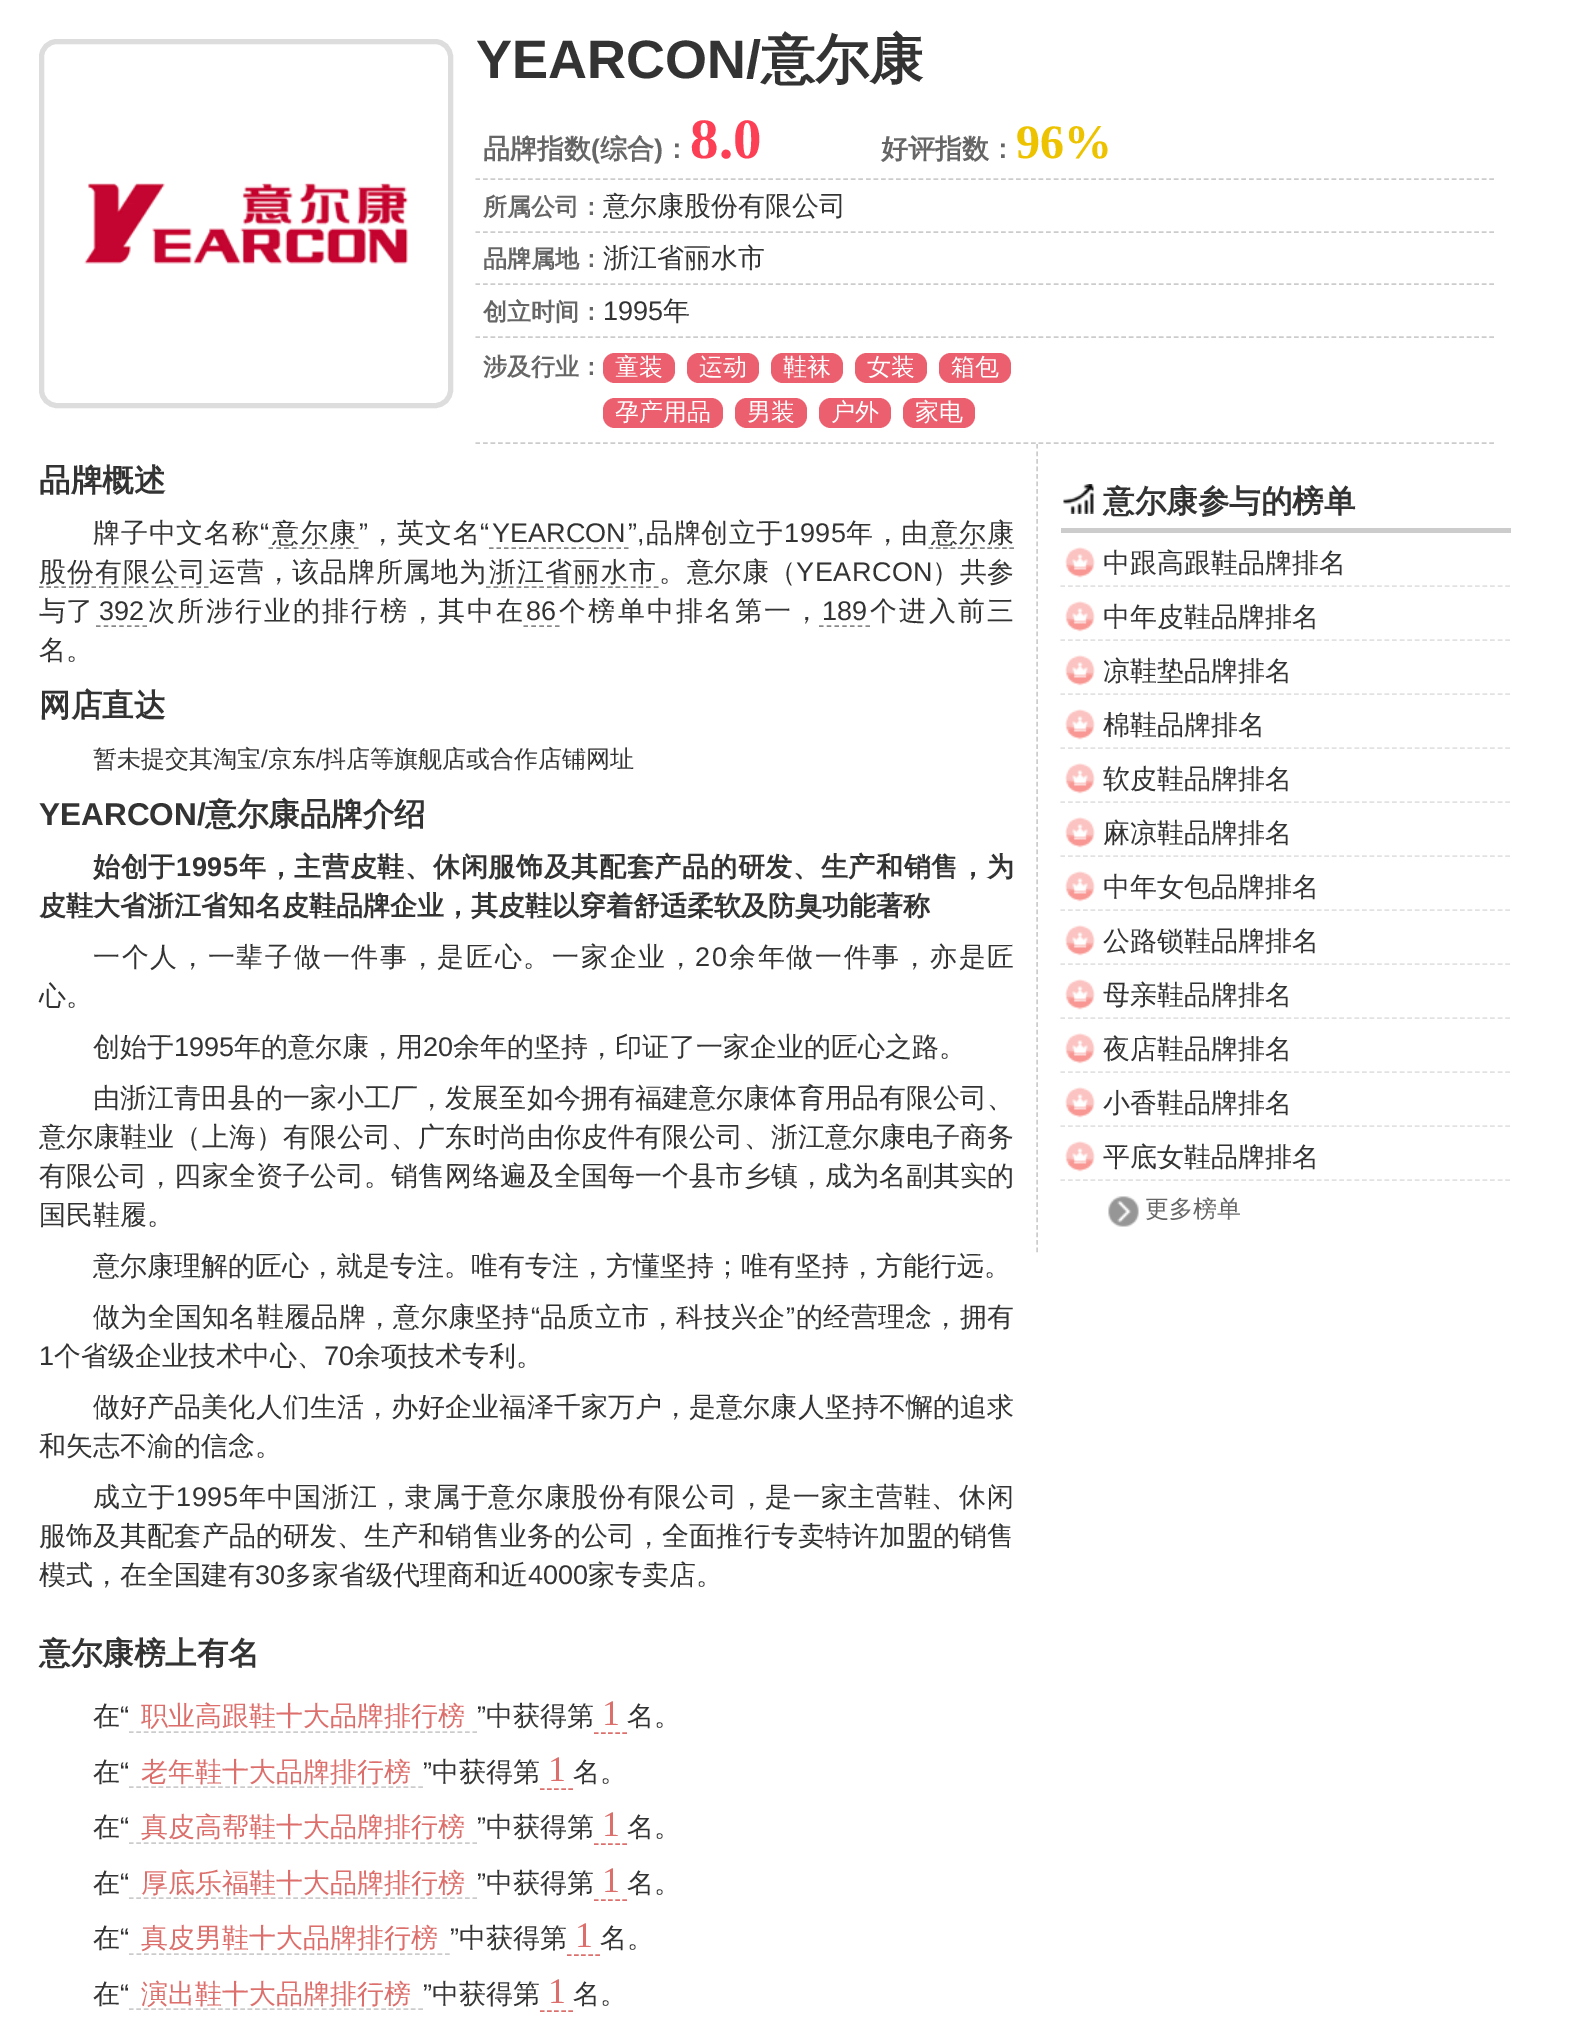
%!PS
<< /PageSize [1577 2023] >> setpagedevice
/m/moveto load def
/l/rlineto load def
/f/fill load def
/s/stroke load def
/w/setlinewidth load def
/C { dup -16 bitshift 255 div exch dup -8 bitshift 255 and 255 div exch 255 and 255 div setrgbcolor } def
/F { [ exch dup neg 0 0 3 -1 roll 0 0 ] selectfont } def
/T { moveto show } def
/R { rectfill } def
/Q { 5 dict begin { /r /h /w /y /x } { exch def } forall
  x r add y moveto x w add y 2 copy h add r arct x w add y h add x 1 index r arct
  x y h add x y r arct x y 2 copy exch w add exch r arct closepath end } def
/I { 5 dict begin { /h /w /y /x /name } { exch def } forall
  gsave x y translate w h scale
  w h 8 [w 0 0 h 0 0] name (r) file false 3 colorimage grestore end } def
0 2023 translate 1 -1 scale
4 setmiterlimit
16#FFFFFF C
0 0 1577 2023 R
16#DDDDDD C
5 w
41.5 41.5 409 364 15.5 Q s
(1.rgb) 84 183 324 81 I
/LiberationSans-Bold 54 F
16#333333 C
(YEARCON/) 476 78 T
/WenQuanYiZenHei-Bold 54 F
(意尔康) 761 78 T
16#CCCCCC C
1.5 w
[4.5 3.01] 0 setdash
475.5 179 m 1020 0 l s
/WenQuanYiZenHei-Bold 27 F
16#666666 C
(品牌指数) 483 158 T
/LiberationSans-Bold 27 F
(\() 591 158 T
/WenQuanYiZenHei-Bold 27 F
(综合) 600 158 T
/LiberationSans-Bold 27 F
(\)) 654 158 T
/WenQuanYiZenHei-Bold 27 F
(：) 663 158 T
/LiberationSerif-Bold 57 F
16#FC3F54 C
(8.0) 690 158 T
/WenQuanYiZenHei-Bold 27 F
16#666666 C
(好评指数：) 881 158 T
/LiberationSerif-Bold 48 F
16#EDC300 C
(96%) 1016 158 T
16#CCCCCC C
475.5 232 m 1020 0 l s
/WenQuanYiZenHei-Bold 24 F
16#666666 C
(所属公司：) 483 215 T
/WenQuanYiZenHei-Medium 27 F
16#333333 C
(意尔康股份有限公司) 603 215 T
16#CCCCCC C
475.5 284 m 1020 0 l s
/WenQuanYiZenHei-Bold 24 F
16#666666 C
(品牌属地：) 483 267 T
/WenQuanYiZenHei-Medium 27 F
16#333333 C
(浙江省丽水市) 603 267 T
16#CCCCCC C
475.5 337 m 1020 0 l s
/WenQuanYiZenHei-Bold 24 F
16#666666 C
(创立时间：) 483 320 T
/LiberationSans-Regular 27 F
16#333333 C
(1995) 603 320 T
/WenQuanYiZenHei-Medium 27 F
(年) 663 320 T
16#CCCCCC C
475.5 443 m 1020 0 l s
/WenQuanYiZenHei-Bold 24 F
16#666666 C
(涉及行业：) 483 375 T
16#EC5F6E C
603 353 72 30 12 Q f
/WenQuanYiZenHei-Medium 24 F
16#FFFFFF C
(童装) 615 375 T
16#EC5F6E C
687 353 72 30 12 Q f
16#FFFFFF C
(运动) 699 375 T
16#EC5F6E C
771 353 72 30 12 Q f
16#FFFFFF C
(鞋袜) 783 375 T
16#EC5F6E C
855 353 72 30 12 Q f
16#FFFFFF C
(女装) 867 375 T
16#EC5F6E C
939 353 72 30 12 Q f
16#FFFFFF C
(箱包) 951 375 T
16#EC5F6E C
603 398 120 30 12 Q f
16#FFFFFF C
(孕产用品) 615 420 T
16#EC5F6E C
735 398 72 30 12 Q f
16#FFFFFF C
(男装) 747 420 T
16#EC5F6E C
819 398 72 30 12 Q f
16#FFFFFF C
(户外) 831 420 T
16#EC5F6E C
903 398 72 30 12 Q f
16#FFFFFF C
(家电) 915 420 T
/WenQuanYiZenHei-Bold 31.5 F
16#333333 C
(品牌概述) 39 491 T
/WenQuanYiZenHei-Medium 27 F
93 542 m .75 0 (牌子中文名称) ashow
/LiberationSans-Regular 27 F
260 542 m .75 0 (“) ashow
/WenQuanYiZenHei-Medium 27 F
272 542 m 1.5 0 (意尔康) ashow
16#888888 C
[4.5 3.27] 0 setdash
268.5 548 m 90 0 l s
/LiberationSans-Regular 27 F
16#333333 C
359 542 m 1 0 (”) ashow
/WenQuanYiZenHei-Medium 27 F
369 542 m 1 0 (，英文名) ashow
/LiberationSans-Regular 27 F
480 542 m 1 0 (“) ashow
(YEARCON) 492 542 T
16#888888 C
[4.5 3] 0 setdash
489 548 m 139.5 0 l s
16#333333 C
628 542 m .5 0 (”,) ashow
/WenQuanYiZenHei-Medium 27 F
646 542 m .5 0 (品牌创立于) ashow
/LiberationSans-Regular 27 F
784 542 m .5 0 (1995) ashow
/WenQuanYiZenHei-Medium 27 F
846 542 m .5 0 (年，由) ashow
931 542 m 1 0 (意尔康) ashow
16#888888 C
[4.5 2.86] 0 setdash
928.5 548 m 85.5 0 l s
16#333333 C
39 581 m 1 0 (股份有限公司) ashow
16#888888 C
[4.5 3] 0 setdash
39 587 m 169.5 0 l s
16#333333 C
209 581 m .75 0 (运营，该品牌所属地为) ashow
489 581 m 1 0 (浙江省丽水市) ashow
16#888888 C
[4.5 3.13] 0 setdash
486 587 m 172.5 0 l s
16#333333 C
659 581 m .5 0 (。意尔康（) ashow
/LiberationSans-Regular 27 F
796 581 m .5 0 (YEARCON) ashow
/WenQuanYiZenHei-Medium 27 F
932 581 m .5 0 (）共参) ashow
(与了) 39 620 T
/LiberationSans-Regular 27 F
(392) 99 620 T
16#888888 C
[4.5 3.25] 0 setdash
96 626 m 51 0 l s
/WenQuanYiZenHei-Medium 27 F
16#333333 C
148 620 m 2 0 (次所涉行业的排行榜，其中在) ashow
/LiberationSans-Regular 27 F
(86) 526 620 T
16#888888 C
[4.5 3.38] 0 setdash
523.5 626 m 36 0 l s
/WenQuanYiZenHei-Medium 27 F
16#333333 C
559 620 m 2.25 0 (个榜单中排名第一，) ashow
/LiberationSans-Regular 27 F
(189) 822 620 T
16#888888 C
[4.5 3.25] 0 setdash
819 626 m 51 0 l s
/WenQuanYiZenHei-Medium 27 F
16#333333 C
870 620 m 2.25 0 (个进入前三) ashow
(名。) 39 659 T
/WenQuanYiZenHei-Bold 31.5 F
(网店直达) 39 716 T
/WenQuanYiZenHei-Medium 24 F
(暂未提交其淘宝) 93 767 T
/LiberationSans-Regular 24 F
(/) 261 767 T
/WenQuanYiZenHei-Medium 24 F
(京东) 268 767 T
/LiberationSans-Regular 24 F
(/) 316 767 T
/WenQuanYiZenHei-Medium 24 F
(抖店等旗舰店或合作店铺网址) 322 767 T
/LiberationSans-Bold 31.5 F
(YEARCON/) 39 825 T
/WenQuanYiZenHei-Bold 31.5 F
(意尔康品牌介绍) 205 825 T
/WenQuanYiZenHei-Bold 27 F
93 876 m .7 0 (始创于) ashow
/LiberationSans-Bold 27 F
176 876 m .7 0 (1995) ashow
/WenQuanYiZenHei-Bold 27 F
239 876 m .7 0 (年，主营皮鞋、休闲服饰及其配套产品的研发、生产和销售，为) ashow
(皮鞋大省浙江省知名皮鞋品牌企业，其皮鞋以穿着舒适柔软及防臭功能著称) 39 915 T
/WenQuanYiZenHei-Medium 27 F
93 966 m 1.7 0 (一个人，一辈子做一件事，是匠心。一家企业，) ashow
/LiberationSans-Regular 27 F
695 966 m 1.7 0 (20) ashow
/WenQuanYiZenHei-Medium 27 F
729 966 m 1.7 0 (余年做一件事，亦是匠) ashow
(心。) 39 1005 T
(创始于) 93 1056 T
/LiberationSans-Regular 27 F
(1995) 174 1056 T
/WenQuanYiZenHei-Medium 27 F
(年的意尔康，用) 234 1056 T
/LiberationSans-Regular 27 F
(20) 423 1056 T
/WenQuanYiZenHei-Medium 27 F
(余年的坚持，印证了一家企业的匠心之路。) 453 1056 T
93 1107 m .1 0 (由浙江青田县的一家小工厂，发展至如今拥有福建意尔康体育用品有限公司、) ashow
39 1146 m .1 0 (意尔康鞋业（上海）有限公司、广东时尚由你皮件有限公司、浙江意尔康电子商务) ashow
39 1185 m .1 0 (有限公司，四家全资子公司。销售网络遍及全国每一个县市乡镇，成为名副其实的) ashow
(国民鞋履。) 39 1224 T
(意尔康理解的匠心，就是专注。唯有专注，方懂坚持；唯有坚持，方能行远。) 93 1275 T
93 1326 m .3 0 (做为全国知名鞋履品牌，意尔康坚持) ashow
/LiberationSans-Regular 27 F
531 1326 m .3 0 (“) ashow
/WenQuanYiZenHei-Medium 27 F
540 1326 m .3 0 (品质立市，科技兴企) ashow
/LiberationSans-Regular 27 F
786 1326 m .3 0 (”) ashow
/WenQuanYiZenHei-Medium 27 F
796 1326 m .3 0 (的经营理念，拥有) ashow
/LiberationSans-Regular 27 F
(1) 39 1365 T
/WenQuanYiZenHei-Medium 27 F
(个省级企业技术中心、) 54 1365 T
/LiberationSans-Regular 27 F
(70) 324 1365 T
/WenQuanYiZenHei-Medium 27 F
(余项技术专利。) 354 1365 T
93 1416 m .1 0 (做好产品美化人们生活，办好企业福泽千家万户，是意尔康人坚持不懈的追求) ashow
(和矢志不渝的信念。) 39 1455 T
93 1506 m .7 0 (成立于) ashow
/LiberationSans-Regular 27 F
176 1506 m .7 0 (1995) ashow
/WenQuanYiZenHei-Medium 27 F
239 1506 m .7 0 (年中国浙江，隶属于意尔康股份有限公司，是一家主营鞋、休闲) ashow
39 1545 m .1 0 (服饰及其配套产品的研发、生产和销售业务的公司，全面推行专卖特许加盟的销售) ashow
(模式，在全国建有) 39 1584 T
/LiberationSans-Regular 27 F
(30) 255 1584 T
/WenQuanYiZenHei-Medium 27 F
(多家省级代理商和近) 285 1584 T
/LiberationSans-Regular 27 F
(4000) 528 1584 T
/WenQuanYiZenHei-Medium 27 F
(家专卖店。) 588 1584 T
/WenQuanYiZenHei-Bold 31.5 F
(意尔康榜上有名) 39 1664 T
/WenQuanYiZenHei-Medium 27 F
(在) 93 1725 T
/LiberationSans-Regular 27 F
(“) 120 1725 T
/WenQuanYiZenHei-Medium 27 F
16#DC6F6B C
(职业高跟鞋十大品牌排行榜) 141 1725 T
16#CCCCCC C
[4.5 2.97] 0 setdash
129 1732 m 348 0 l s
/LiberationSans-Regular 27 F
16#333333 C
(”) 477 1725 T
/WenQuanYiZenHei-Medium 27 F
(中获得第) 486 1725 T
/LiberationSerif-Regular 36 F
16#DC6F6B C
(1) 602 1725 T
[4.5 2.62] 0 setdash
594 1733 m 33 0 l s
/WenQuanYiZenHei-Medium 27 F
16#333333 C
(名。) 627 1725 T
(在) 93 1781 T
/LiberationSans-Regular 27 F
(“) 120 1781 T
/WenQuanYiZenHei-Medium 27 F
16#DC6F6B C
(老年鞋十大品牌排行榜) 141 1781 T
16#CCCCCC C
[4.5 2.92] 0 setdash
129 1787 m 294 0 l s
/LiberationSans-Regular 27 F
16#333333 C
(”) 423 1781 T
/WenQuanYiZenHei-Medium 27 F
(中获得第) 432 1781 T
/LiberationSerif-Regular 36 F
16#DC6F6B C
(1) 548 1781 T
[4.5 2.62] 0 setdash
540 1789 m 33 0 l s
/WenQuanYiZenHei-Medium 27 F
16#333333 C
(名。) 573 1781 T
(在) 93 1836 T
/LiberationSans-Regular 27 F
(“) 120 1836 T
/WenQuanYiZenHei-Medium 27 F
16#DC6F6B C
(真皮高帮鞋十大品牌排行榜) 141 1836 T
16#CCCCCC C
[4.5 2.97] 0 setdash
129 1843 m 348 0 l s
/LiberationSans-Regular 27 F
16#333333 C
(”) 477 1836 T
/WenQuanYiZenHei-Medium 27 F
(中获得第) 486 1836 T
/LiberationSerif-Regular 36 F
16#DC6F6B C
(1) 602 1836 T
[4.5 2.62] 0 setdash
594 1844 m 33 0 l s
/WenQuanYiZenHei-Medium 27 F
16#333333 C
(名。) 627 1836 T
(在) 93 1892 T
/LiberationSans-Regular 27 F
(“) 120 1892 T
/WenQuanYiZenHei-Medium 27 F
16#DC6F6B C
(厚底乐福鞋十大品牌排行榜) 141 1892 T
16#CCCCCC C
[4.5 2.97] 0 setdash
129 1898 m 348 0 l s
/LiberationSans-Regular 27 F
16#333333 C
(”) 477 1892 T
/WenQuanYiZenHei-Medium 27 F
(中获得第) 486 1892 T
/LiberationSerif-Regular 36 F
16#DC6F6B C
(1) 602 1892 T
[4.5 2.62] 0 setdash
594 1900 m 33 0 l s
/WenQuanYiZenHei-Medium 27 F
16#333333 C
(名。) 627 1892 T
(在) 93 1947 T
/LiberationSans-Regular 27 F
(“) 120 1947 T
/WenQuanYiZenHei-Medium 27 F
16#DC6F6B C
(真皮男鞋十大品牌排行榜) 141 1947 T
16#CCCCCC C
[4.5 3.03] 0 setdash
129 1954 m 321 0 l s
/LiberationSans-Regular 27 F
16#333333 C
(”) 450 1947 T
/WenQuanYiZenHei-Medium 27 F
(中获得第) 459 1947 T
/LiberationSerif-Regular 36 F
16#DC6F6B C
(1) 575 1947 T
[4.5 2.62] 0 setdash
567 1955 m 33 0 l s
/WenQuanYiZenHei-Medium 27 F
16#333333 C
(名。) 600 1947 T
(在) 93 2003 T
/LiberationSans-Regular 27 F
(“) 120 2003 T
/WenQuanYiZenHei-Medium 27 F
16#DC6F6B C
(演出鞋十大品牌排行榜) 141 2003 T
16#CCCCCC C
[4.5 2.92] 0 setdash
129 2009 m 294 0 l s
/LiberationSans-Regular 27 F
16#333333 C
(”) 423 2003 T
/WenQuanYiZenHei-Medium 27 F
(中获得第) 432 2003 T
/LiberationSerif-Regular 36 F
16#DC6F6B C
(1) 548 2003 T
[4.5 2.62] 0 setdash
540 2011 m 33 0 l s
/WenQuanYiZenHei-Medium 27 F
16#333333 C
(名。) 573 2003 T
16#CCCCCC C
[4.5 3.01] 0 setdash
1037 444 m 0 808.5 l s
(2.rgb) 1063 484 31 30 I
1061 528 450 5 R
/WenQuanYiZenHei-Bold 31.5 F
16#333333 C
(意尔康参与的榜单) 1103 512 T
(3.rgb) 1065 547 30 31 I
16#E2E2E2 C
[4.5 3.04] 0 setdash
1060.5 586 m 450 0 l s
/WenQuanYiZenHei-Medium 27 F
16#333333 C
(中跟高跟鞋品牌排名) 1103 572 T
(3.rgb) 1065 601 30 31 I
16#E2E2E2 C
1060.5 640 m 450 0 l s
16#333333 C
(中年皮鞋品牌排名) 1103 626 T
(3.rgb) 1065 655 30 31 I
16#E2E2E2 C
1060.5 694 m 450 0 l s
16#333333 C
(凉鞋垫品牌排名) 1103 680 T
(3.rgb) 1065 709 30 31 I
16#E2E2E2 C
1060.5 748 m 450 0 l s
16#333333 C
(棉鞋品牌排名) 1103 734 T
(3.rgb) 1065 763 30 31 I
16#E2E2E2 C
1060.5 802 m 450 0 l s
16#333333 C
(软皮鞋品牌排名) 1103 788 T
(3.rgb) 1065 817 30 31 I
16#E2E2E2 C
1060.5 856 m 450 0 l s
16#333333 C
(麻凉鞋品牌排名) 1103 842 T
(3.rgb) 1065 871 30 31 I
16#E2E2E2 C
1060.5 910 m 450 0 l s
16#333333 C
(中年女包品牌排名) 1103 896 T
(3.rgb) 1065 925 30 31 I
16#E2E2E2 C
1060.5 964 m 450 0 l s
16#333333 C
(公路锁鞋品牌排名) 1103 950 T
(3.rgb) 1065 979 30 31 I
16#E2E2E2 C
1060.5 1018 m 450 0 l s
16#333333 C
(母亲鞋品牌排名) 1103 1004 T
(3.rgb) 1065 1033 30 31 I
16#E2E2E2 C
1060.5 1072 m 450 0 l s
16#333333 C
(夜店鞋品牌排名) 1103 1058 T
(3.rgb) 1065 1087 30 31 I
16#E2E2E2 C
1060.5 1126 m 450 0 l s
16#333333 C
(小香鞋品牌排名) 1103 1112 T
(3.rgb) 1065 1141 30 31 I
16#E2E2E2 C
1060.5 1180 m 450 0 l s
16#333333 C
(平底女鞋品牌排名) 1103 1166 T
(4.rgb) 1108 1196 31 31 I
/WenQuanYiZenHei-Medium 24 F
16#666666 C
(更多榜单) 1145 1217 T
showpage
